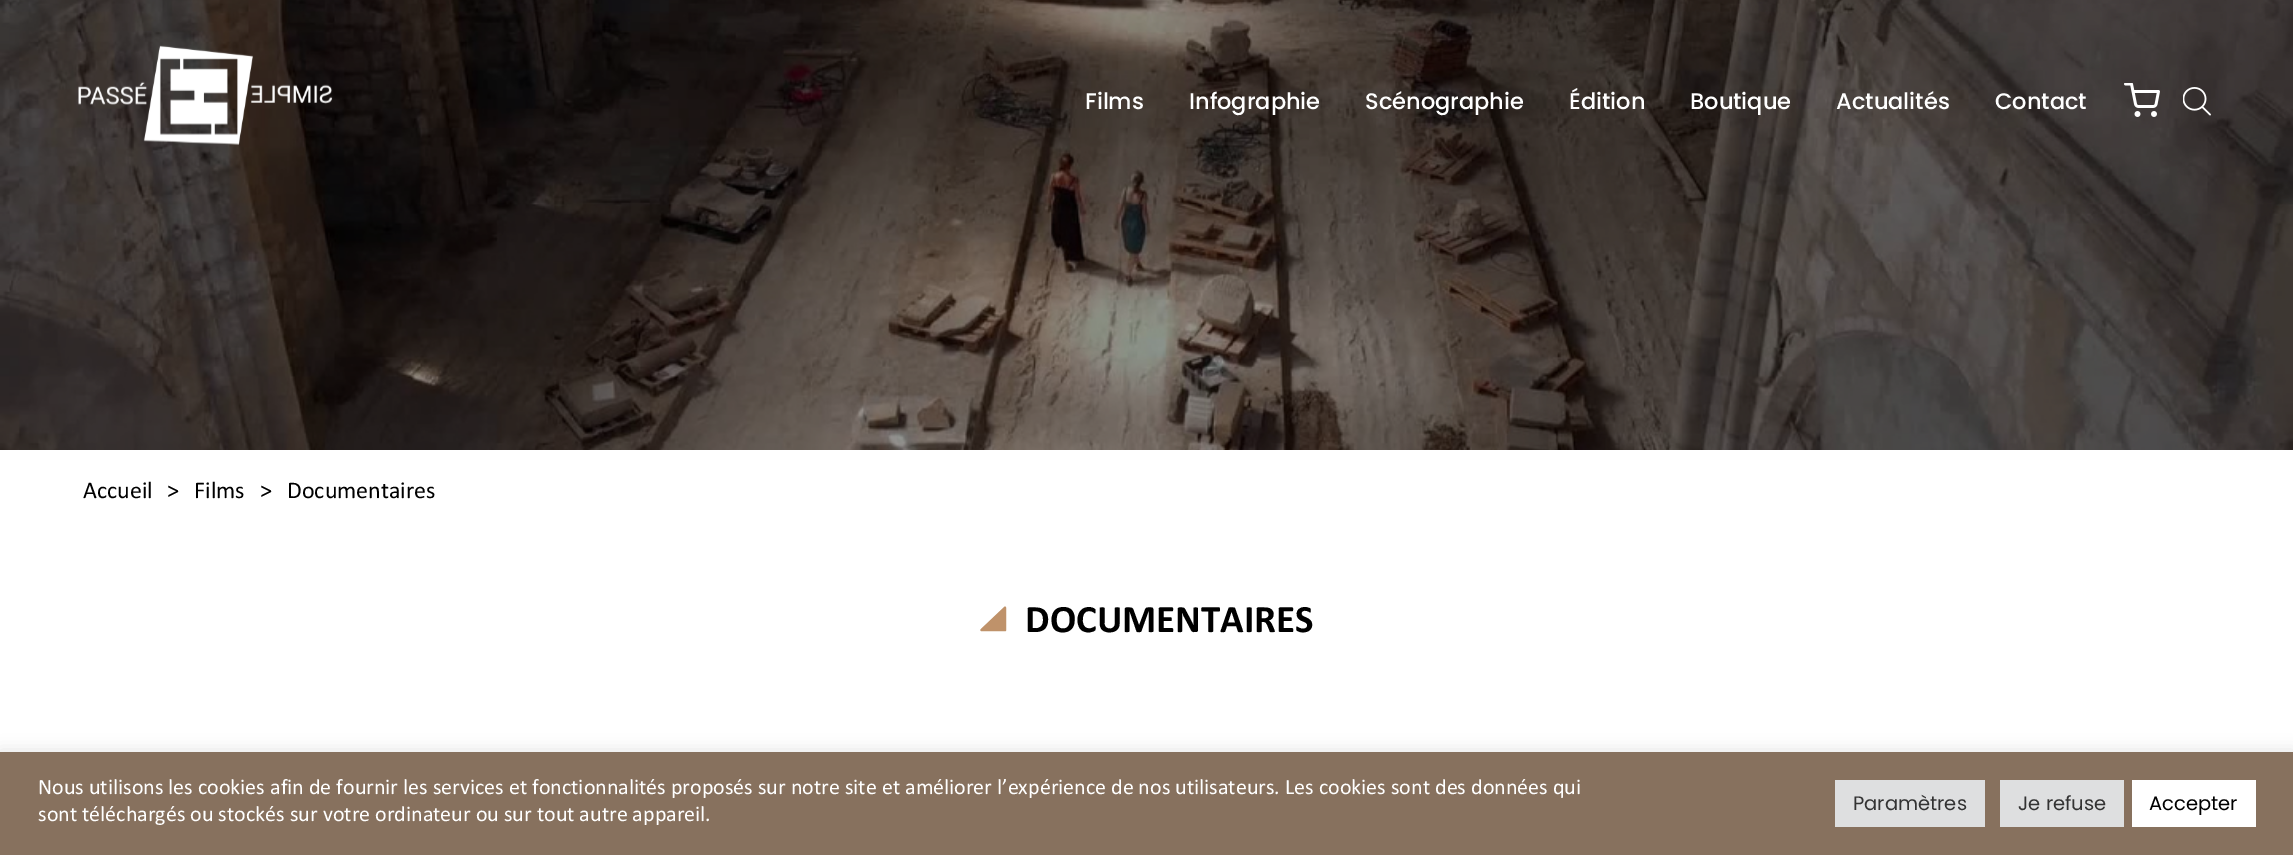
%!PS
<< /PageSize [2293 855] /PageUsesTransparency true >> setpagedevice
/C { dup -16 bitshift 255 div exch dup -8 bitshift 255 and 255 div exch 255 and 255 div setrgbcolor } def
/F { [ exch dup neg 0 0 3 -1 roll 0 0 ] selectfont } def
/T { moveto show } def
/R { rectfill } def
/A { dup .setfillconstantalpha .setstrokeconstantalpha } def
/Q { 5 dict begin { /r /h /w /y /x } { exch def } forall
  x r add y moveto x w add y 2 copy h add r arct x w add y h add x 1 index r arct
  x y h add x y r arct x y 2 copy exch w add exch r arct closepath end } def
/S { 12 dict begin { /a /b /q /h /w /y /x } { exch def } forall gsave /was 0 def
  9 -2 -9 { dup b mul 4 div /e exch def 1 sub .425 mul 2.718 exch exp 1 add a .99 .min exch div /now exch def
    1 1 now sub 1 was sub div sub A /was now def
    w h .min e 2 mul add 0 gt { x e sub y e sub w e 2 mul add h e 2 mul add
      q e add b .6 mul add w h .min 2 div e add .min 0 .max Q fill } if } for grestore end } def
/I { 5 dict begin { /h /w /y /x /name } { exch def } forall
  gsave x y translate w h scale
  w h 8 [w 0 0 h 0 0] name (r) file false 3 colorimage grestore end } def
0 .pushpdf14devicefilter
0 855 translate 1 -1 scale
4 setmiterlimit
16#FFFFFF C
0 0 2293 855 R
(4.rgb) 0 0 2293 450 I
(1.rgb) 78 45 255 100 I
/Poppins-Medium 22.5 F
(Films) 1085 109 T
(Infographie) 1189 109 T
(Scénographie) 1365 109 T
(Édition) 1569 109 T
(Boutique) 1690 109 T
(Actualités) 1836 109 T
(Contact) 1995 109 T
(2.rgb) 2124 83 36 34 I
(3.rgb) 2183 87 28 29 I
/Calibri-Regular 24 F
16#000000 C
(Accueil) 83 498 T
(>) 167 498 T
(Films) 194 498 T
(>) 260 498 T
(Documentaires) 287 498 T
(5.rgb) 980 606 27 26 I
/Calibri-Bold 39 F
(DOCUMENTAIRES) 1025 632 T
16#ACABAB C
0 750 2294 104 0 7.5 .3 S
16#87715E C
0 752 2293 103 R
/Calibri-Regular 22 F
16#FFFFFF C
(Nous utilisons les cookies afin de fournir les services et fonctionnalités proposés sur notre site et améliorer l’expérience de nos utilisateurs. Les cookies sont des données qui) 38 794 T
(sont téléchargés ou stockés sur votre ordinateur ou sur tout autre appareil.) 38 821 T
16#DEDFE0 C
1835 780 150 47 R
/Poppins-Regular 19.5 F
16#333333 C
(Paramètres) 1853 810 T
16#DEDFE0 C
2000 780 124 47 R
16#333333 C
(Je refuse) 2018 810 T
16#FFFFFF C
2132 780 124 47 R
16#000000 C
(Accepter) 2149 810 T
.poppdf14devicefilter showpage
